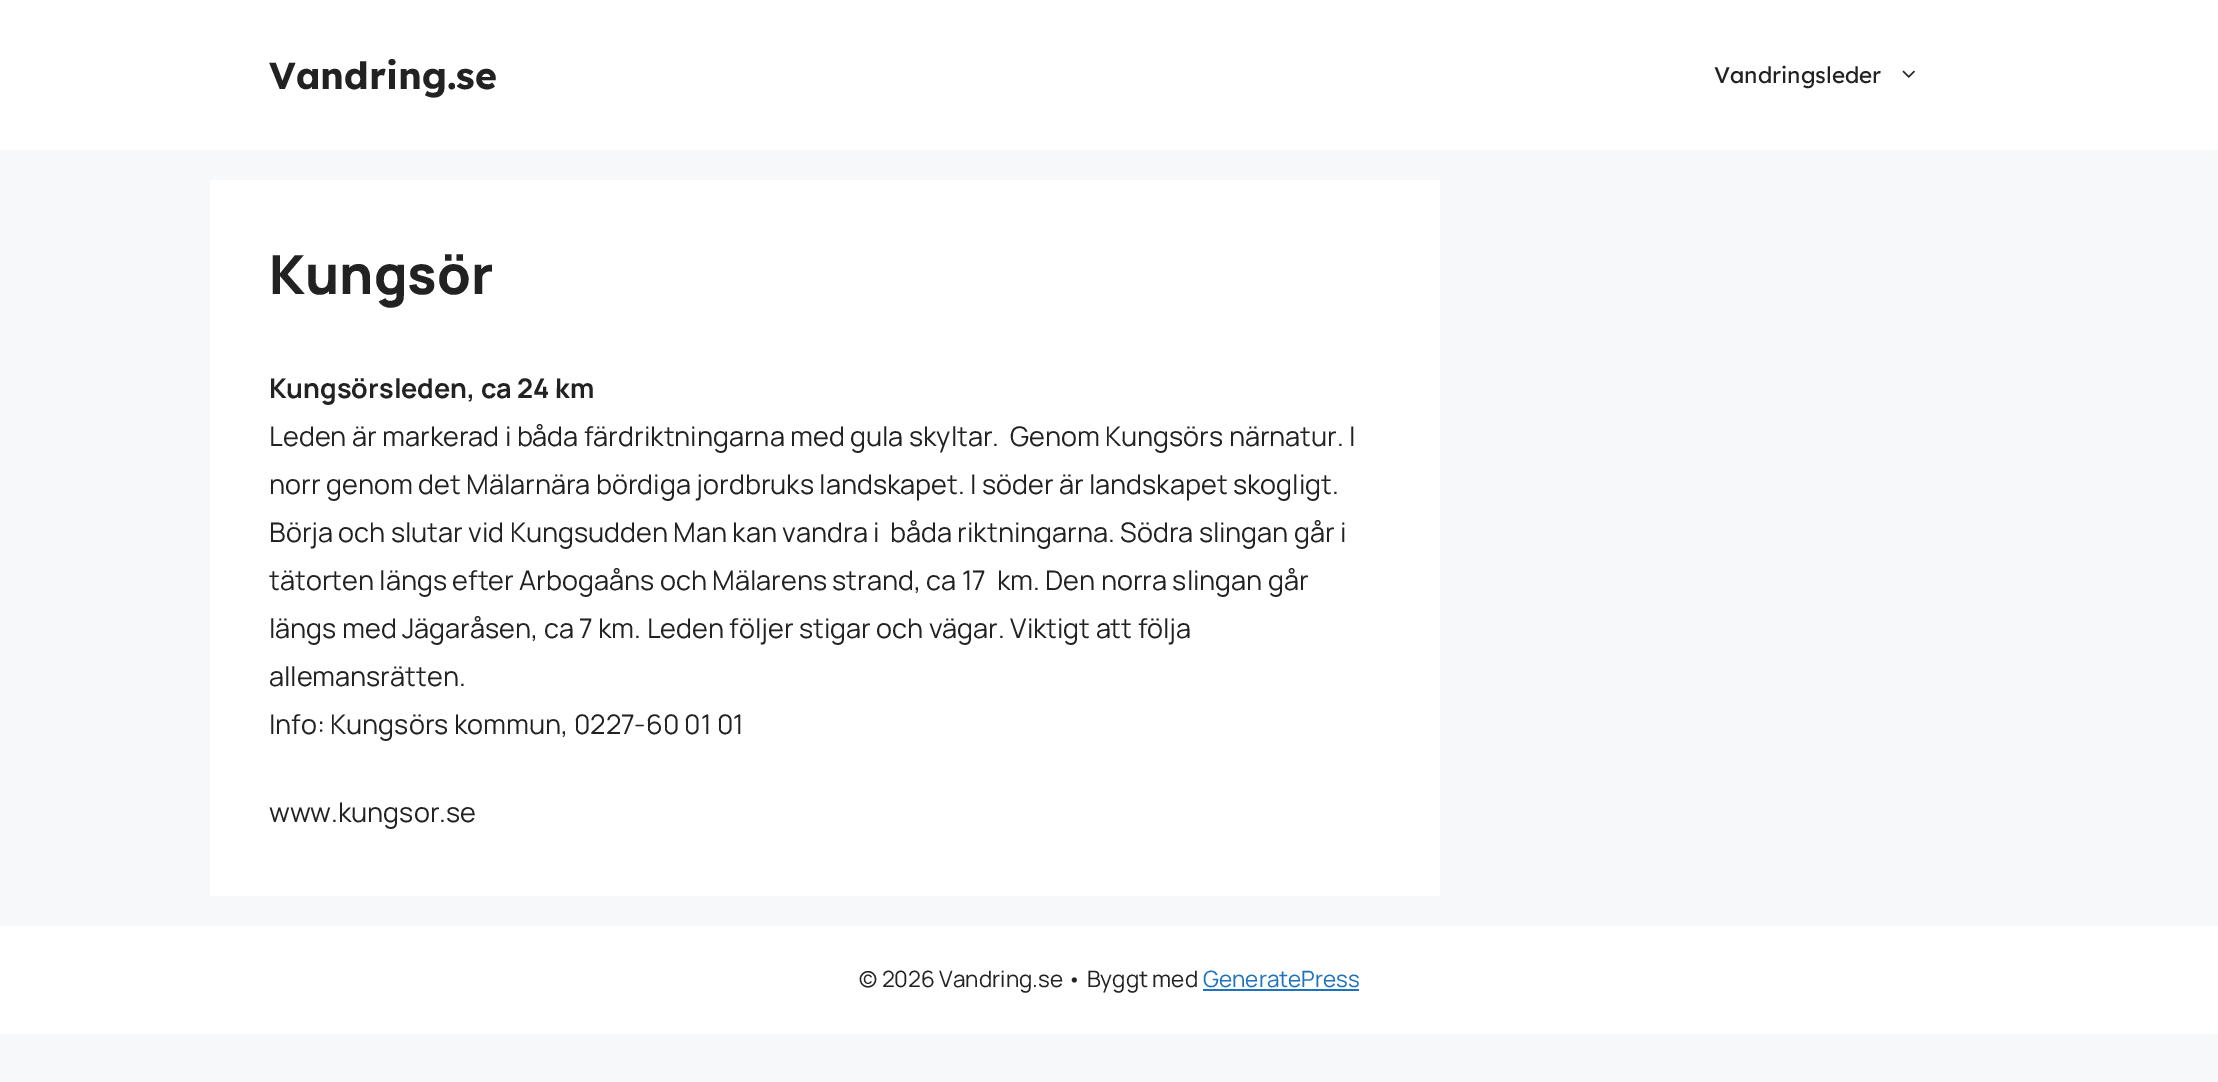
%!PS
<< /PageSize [2218 1082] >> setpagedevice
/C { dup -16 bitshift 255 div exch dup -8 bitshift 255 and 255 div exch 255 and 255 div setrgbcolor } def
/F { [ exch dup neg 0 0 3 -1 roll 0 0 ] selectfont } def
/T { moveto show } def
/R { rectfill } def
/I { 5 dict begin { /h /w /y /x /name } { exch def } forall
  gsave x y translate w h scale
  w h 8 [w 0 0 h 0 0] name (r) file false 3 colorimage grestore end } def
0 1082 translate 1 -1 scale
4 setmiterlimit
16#F7F8F9 C
0 0 2218 1082 R
16#FFFFFF C
0 0 2218 150 R
/Lexend-Bold 37.5 F
16#222222 C
(Vandring.se) 269 89 T
/Lexend-Regular 22.5 F
(Vandringsleder) 1714 83 T
(1.rgb) 1902 70 13 8 I
16#FFFFFF C
210 180 1230 716 R
/Manrope-ExtraBold 54 F
16#222222 C
(Kungsör) 269 294 T
/Manrope-Bold 27 F
(Kungsörsleden, ca 24 km) 269 398 T
/Manrope-Regular 27 F
(Leden är markerad i båda färdriktningarna med gula skyltar.  Genom Kungsörs närnatur. I) 269 446 T
(norr genom det Mälarnära bördiga jordbruks landskapet. I söder är landskapet skogligt.) 269 494 T
(Börja och slutar vid Kungsudden Man kan vandra i  båda riktningarna. Södra slingan går i) 269 542 T
(tätorten längs efter Arbogaåns och Mälarens strand, ca 17  km. Den norra slingan går) 269 590 T
(längs med Jägaråsen, ca 7 km. Leden följer stigar och vägar. Viktigt att följa) 269 638 T
(allemansrätten.) 269 686 T
(Info: Kungsörs kommun, 0227-60 01 01) 269 734 T
(www.kungsor.se) 269 822 T
16#FFFFFF C
0 926 2218 108 R
/Manrope-Regular 22.5 F
16#222222 C
(© 2026 Vandring.se • Byggt med) 859 987 T
16#1E73BE C
(GeneratePress) 1203 987 T
1203 989 156 2 R
showpage
